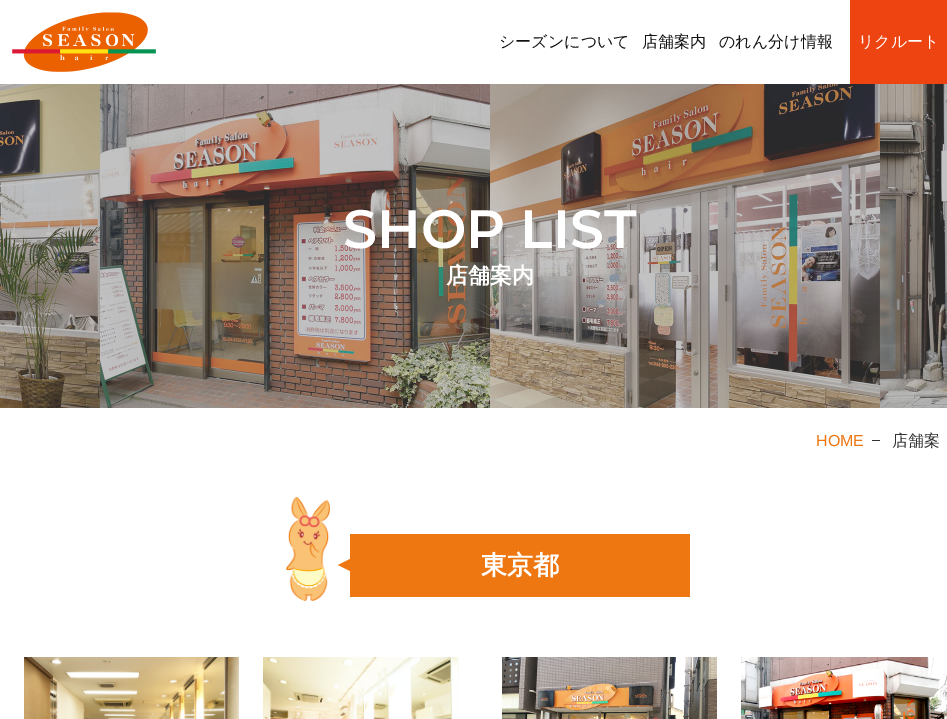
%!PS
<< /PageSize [947 719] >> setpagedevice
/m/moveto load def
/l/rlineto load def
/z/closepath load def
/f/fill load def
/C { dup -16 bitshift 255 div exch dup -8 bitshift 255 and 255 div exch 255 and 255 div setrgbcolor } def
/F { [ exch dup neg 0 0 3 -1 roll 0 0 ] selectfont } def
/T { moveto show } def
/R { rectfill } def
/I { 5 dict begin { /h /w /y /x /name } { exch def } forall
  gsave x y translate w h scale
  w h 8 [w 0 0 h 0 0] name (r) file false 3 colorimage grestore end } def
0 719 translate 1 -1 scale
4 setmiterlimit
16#FFFFFF C
0 0 947 719 R
(1.rgb) 12 12 144 60 I
/WenQuanYiZenHei-Medium 16 F
16#111111 C
(シーズンについて) 499 47 T
(店舗案内) 642 47 T
(のれん分け情報) 719 47 T
16#EE4411 C
850 0 97 84 R
16#FFFFFF C
(リクルート) 858 47 T
(2.rgb) 0 84 947 324 I
/Montserrat-SemiBold 54 F
(SHOP LIST) 343 248 T
/WenQuanYiZenHei-Bold 22 F
(店舗案内) 446 283 T
/LiberationSans-Regular 16 F
16#EE7711 C
(HOME) 816 446 T
16#333333 C
872 440 8 1 R
/WenQuanYiZenHei-Medium 16 F
(店舗案) 892 446 T
16#EE7711 C
350 534 340 63 R
(3.rgb) 286 497 44 104 I
350 559 m 0 12 l -12 -6 l z f
/WenQuanYiZenHei-Bold 26 F
16#FFFFFF C
(東京都) 481 574 T
(4.rgb) 24 657 215 62 I
(5.rgb) 263 657 196 62 I
(6.rgb) 502 657 215 62 I
(7.rgb) 741 657 206 62 I
showpage
